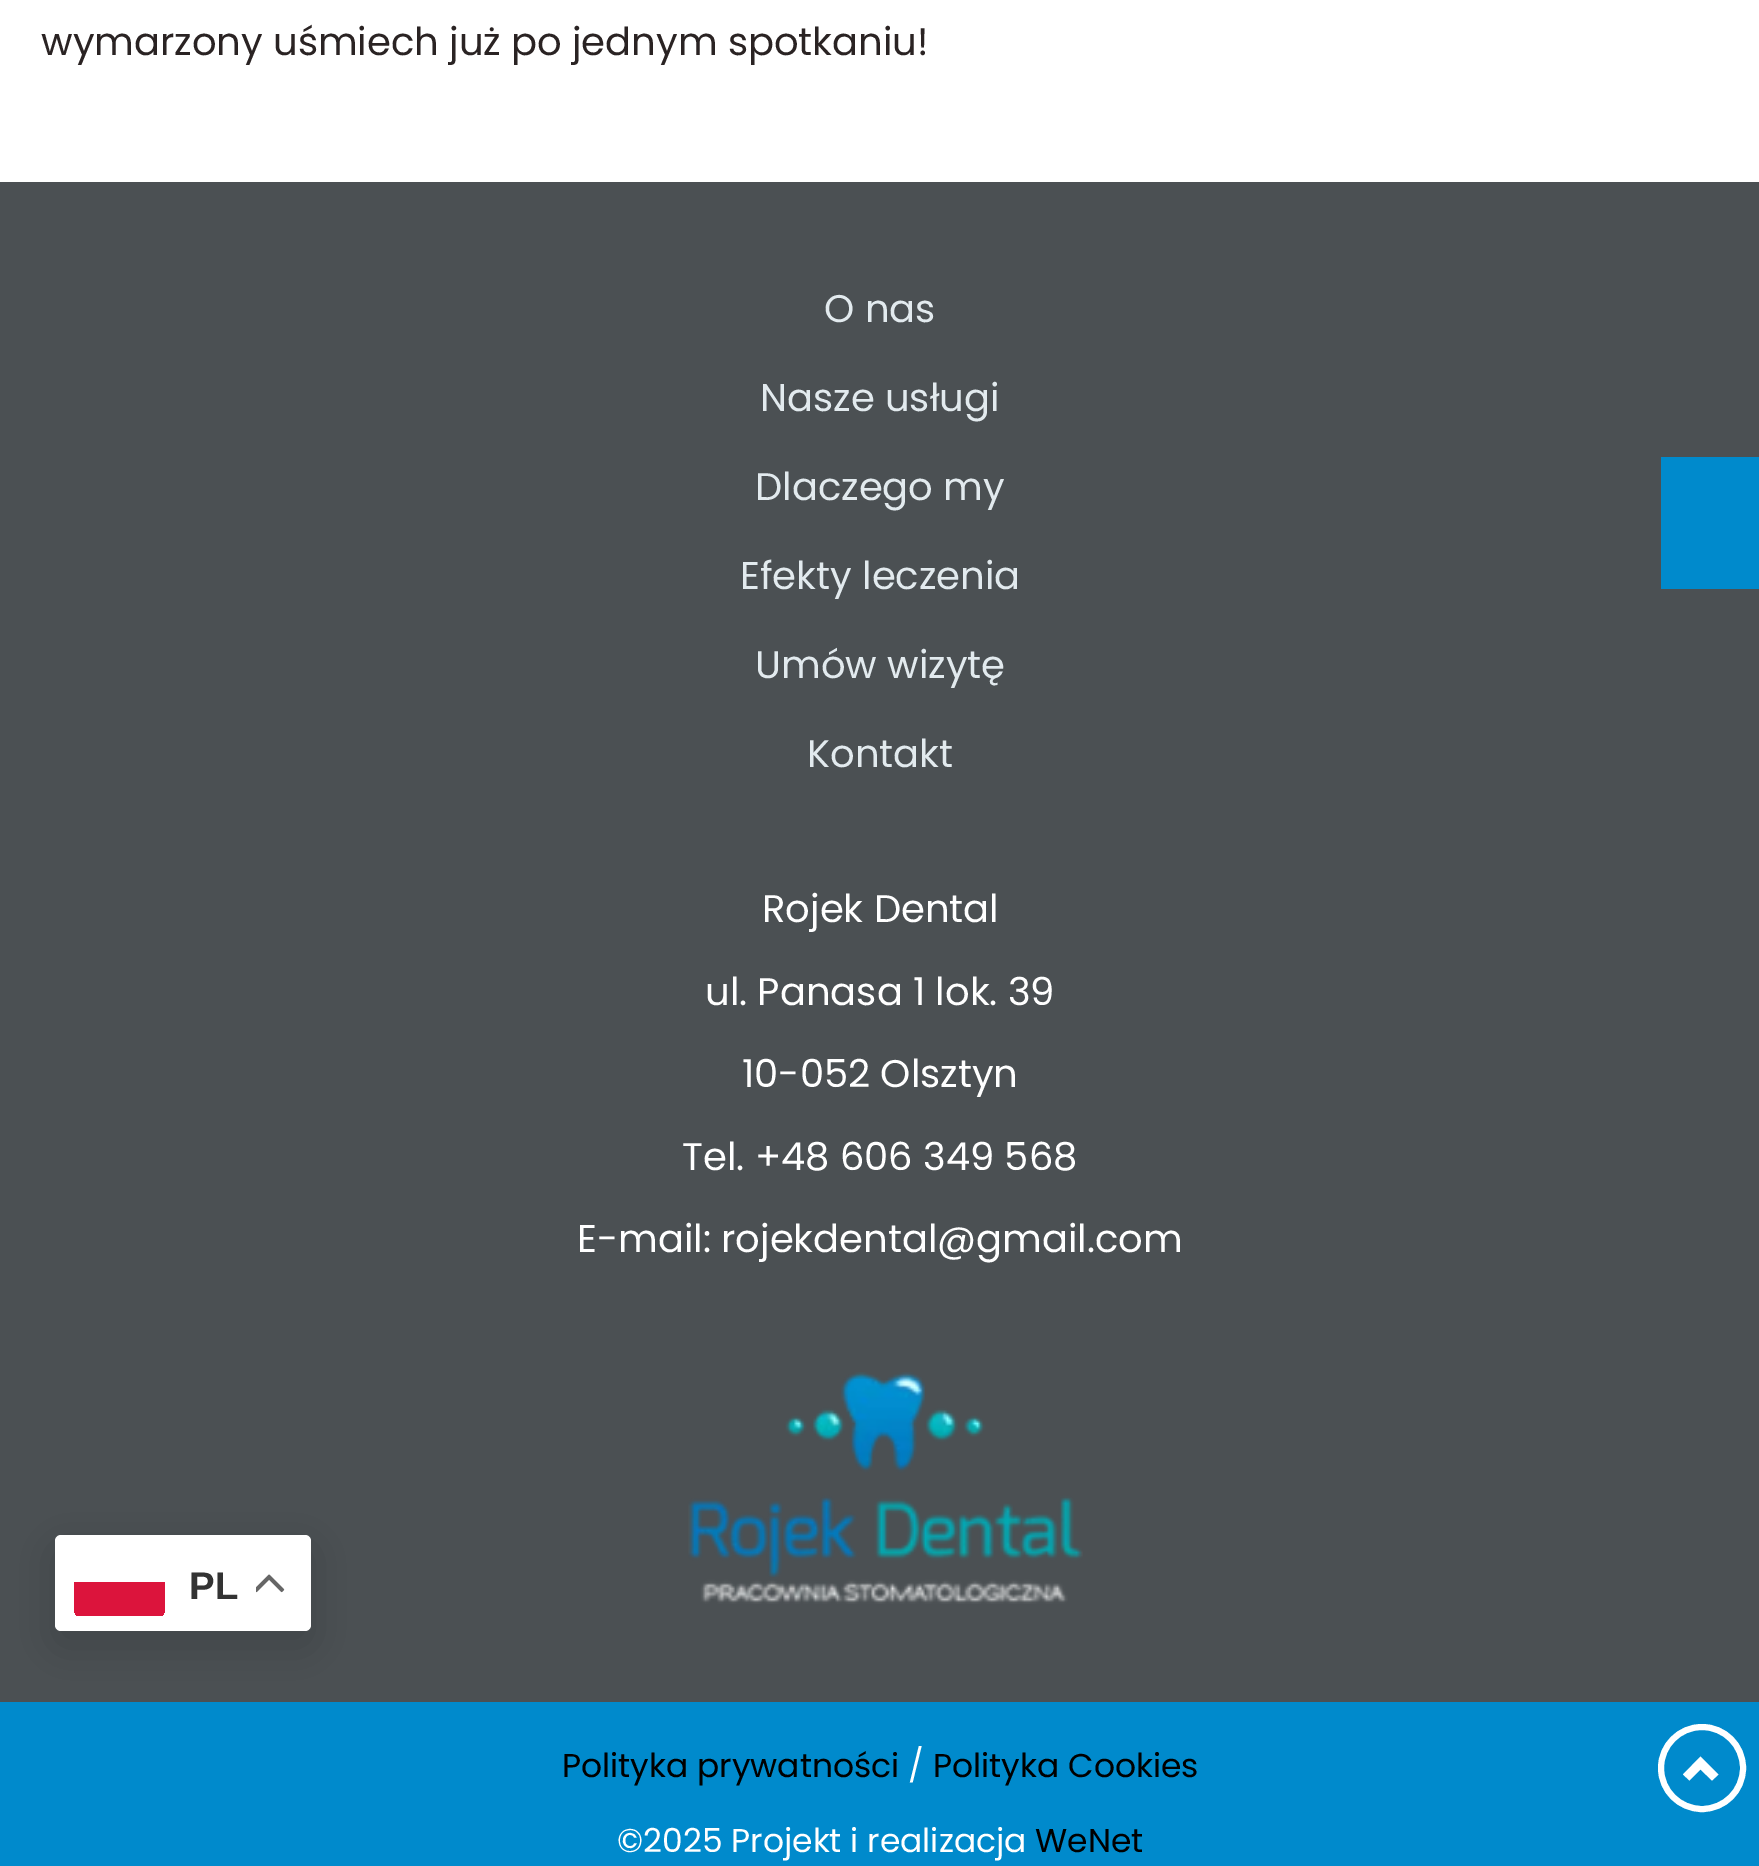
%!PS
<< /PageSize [1759 1866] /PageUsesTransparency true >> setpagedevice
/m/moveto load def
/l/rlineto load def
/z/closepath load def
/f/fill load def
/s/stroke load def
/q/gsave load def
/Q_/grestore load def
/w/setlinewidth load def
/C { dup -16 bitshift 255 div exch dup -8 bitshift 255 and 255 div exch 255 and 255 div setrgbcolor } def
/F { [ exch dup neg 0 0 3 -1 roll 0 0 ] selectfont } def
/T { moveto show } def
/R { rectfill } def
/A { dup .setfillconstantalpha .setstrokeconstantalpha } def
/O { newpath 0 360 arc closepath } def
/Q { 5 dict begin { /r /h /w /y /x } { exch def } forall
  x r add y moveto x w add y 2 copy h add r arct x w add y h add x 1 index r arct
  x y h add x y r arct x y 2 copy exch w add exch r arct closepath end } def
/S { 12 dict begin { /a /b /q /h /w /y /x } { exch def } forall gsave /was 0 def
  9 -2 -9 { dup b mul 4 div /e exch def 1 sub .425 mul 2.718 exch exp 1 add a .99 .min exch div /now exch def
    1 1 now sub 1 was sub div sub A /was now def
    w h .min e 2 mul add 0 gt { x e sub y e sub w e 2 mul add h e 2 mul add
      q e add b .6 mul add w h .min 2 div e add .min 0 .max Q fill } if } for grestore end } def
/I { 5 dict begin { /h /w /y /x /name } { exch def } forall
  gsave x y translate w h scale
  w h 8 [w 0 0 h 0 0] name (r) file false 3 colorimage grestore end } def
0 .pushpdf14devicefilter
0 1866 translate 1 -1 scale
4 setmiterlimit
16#FFFFFF C
0 0 1759 1866 R
/Poppins-Regular 38.5 F
16#2A2323 C
(wymarzony uśmiech już po jednym spotkaniu!) 41 55 T
16#4B5053 C
0 182 1759 1520 R
16#008ACC C
0 1702 1759 164 R
16#000000 C
55 1548 256 97 6 20.5 .15 S
16#FFFFFF C
55 1535 256 96 6 Q f
q
74 1548 91 69 8 Q clip newpath
16#DC143C C
74 1582 91 34 R
Q_
/LiberationSans-Bold 38.5 F
16#333333 C
(PL) 189 1599 T
(1.rgb) 256 1574 29 19 I
/Poppins-Regular 38.5 F
16#E2EAEE C
(O nas) 824 322 T
(Nasze usługi) 760 411 T
(Dlaczego my) 755 500 T
(Efekty leczenia) 740 589 T
(Umów wizytę) 755 678 T
(Kontakt) 807 767 T
16#FFFFFF C
(Rojek Dental) 762 922 T
(ul. Panasa 1 lok. 39) 705 1005 T
(10-052 Olsztyn) 742 1087 T
(Tel. +48 606 349 568) 682 1170 T
(E-mail: rojekdental@gmail.com) 577 1252 T
(2.rgb) 688 1372 395 232 I
/Poppins-Regular 33 F
16#000000 C
(Polityka prywatności) 562 1777 T
16#FFFFFF C
(/) 908 1777 T
16#000000 C
(Polityka Cookies) 933 1777 T
16#FFFFFF C
(©2025 Projekt i realizacja) 617 1852 T
16#000000 C
(WeNet) 1035 1852 T
16#FFFFFF C
6 w
1702 1768 41 O s
1718.5 1774.5 m -6.5 6 l -11.5 -11 l -11 11 l -6.5 -6 l 17.5 -18 l z f
16#008ACC C
1661 457 98 132 R
.poppdf14devicefilter showpage
